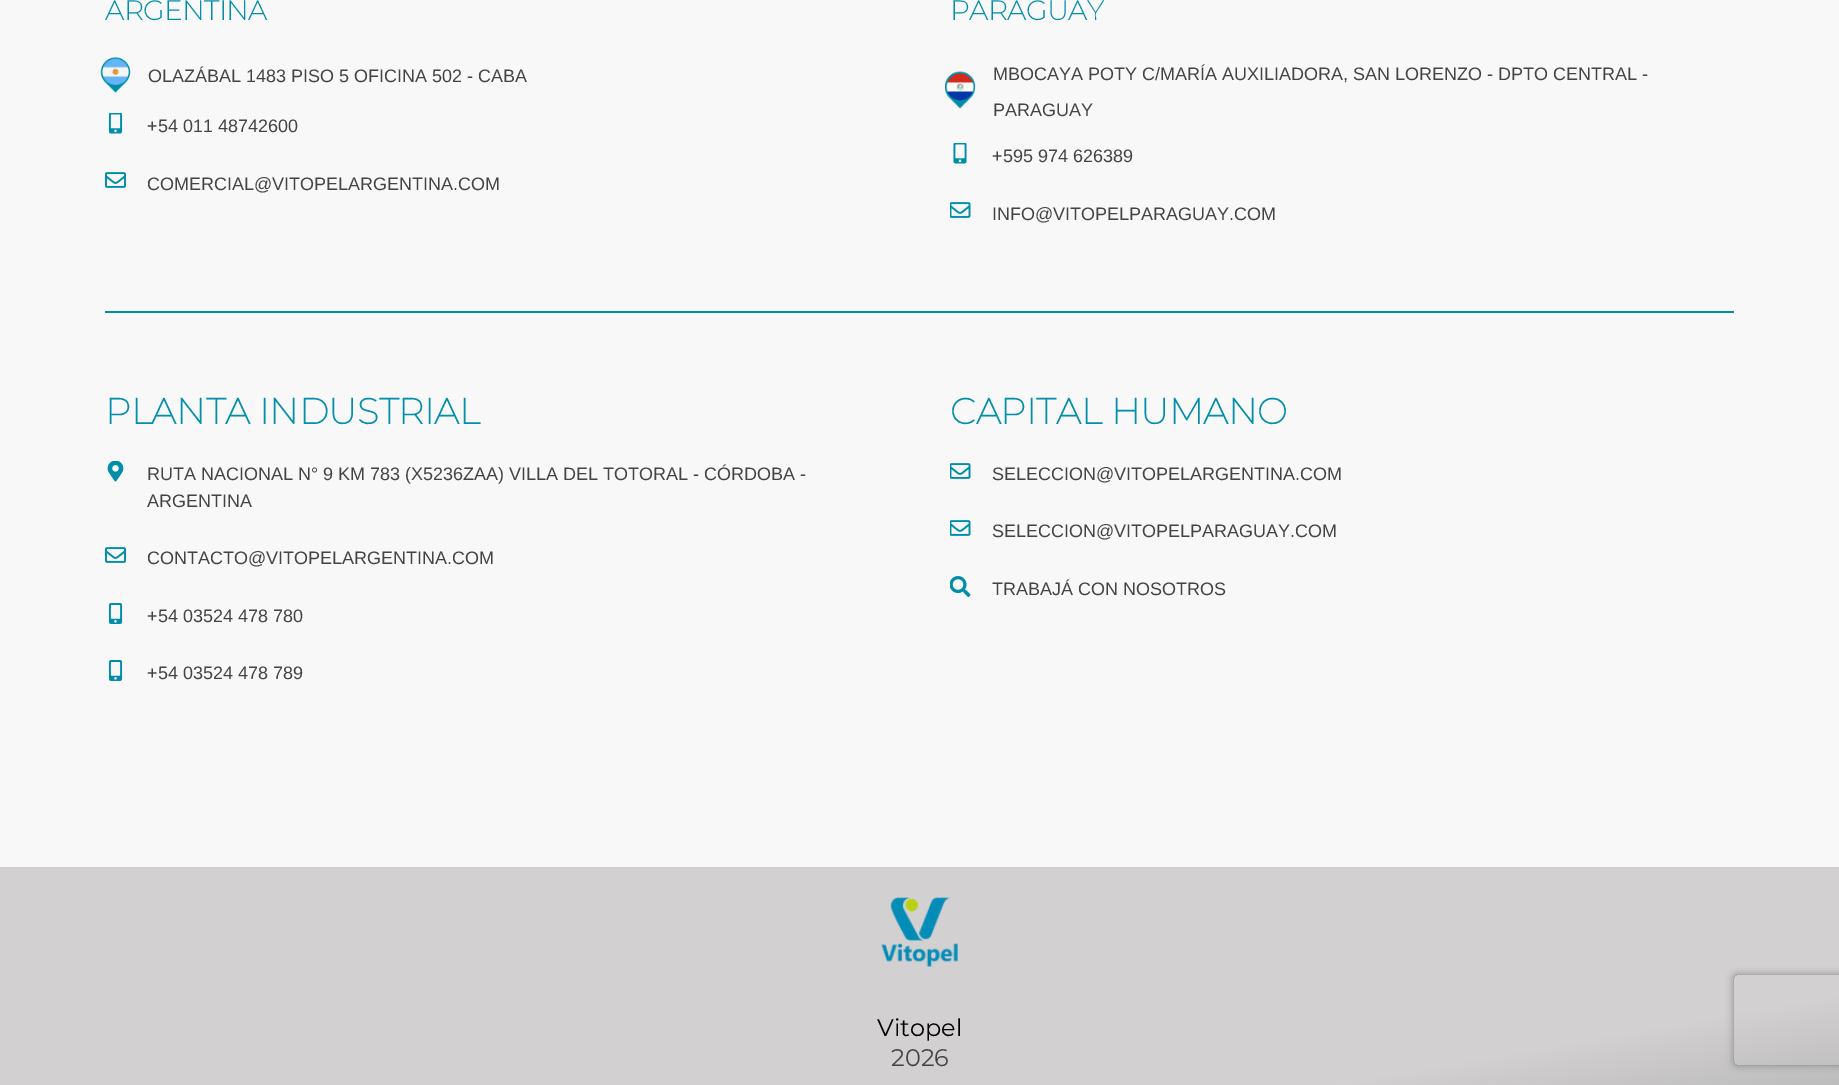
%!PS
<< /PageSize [1839 1085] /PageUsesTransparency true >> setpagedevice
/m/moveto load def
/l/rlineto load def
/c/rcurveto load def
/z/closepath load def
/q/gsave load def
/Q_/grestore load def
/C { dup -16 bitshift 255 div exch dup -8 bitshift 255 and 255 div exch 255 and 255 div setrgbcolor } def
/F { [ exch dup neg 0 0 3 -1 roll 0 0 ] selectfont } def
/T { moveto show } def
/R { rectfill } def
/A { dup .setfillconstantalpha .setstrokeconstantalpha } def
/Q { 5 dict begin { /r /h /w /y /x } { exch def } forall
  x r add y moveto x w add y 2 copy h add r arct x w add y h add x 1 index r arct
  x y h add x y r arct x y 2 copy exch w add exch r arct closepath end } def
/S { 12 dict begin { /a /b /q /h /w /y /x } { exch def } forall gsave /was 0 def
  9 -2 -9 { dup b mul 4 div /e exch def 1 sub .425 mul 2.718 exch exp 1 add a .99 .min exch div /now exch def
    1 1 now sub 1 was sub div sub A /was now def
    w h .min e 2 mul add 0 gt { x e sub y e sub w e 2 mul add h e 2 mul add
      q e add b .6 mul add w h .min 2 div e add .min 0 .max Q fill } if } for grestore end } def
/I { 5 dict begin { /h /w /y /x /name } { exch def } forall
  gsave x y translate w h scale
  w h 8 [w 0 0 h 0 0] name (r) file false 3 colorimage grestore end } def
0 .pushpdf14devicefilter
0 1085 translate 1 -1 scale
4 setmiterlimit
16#F8F8F8 C
0 0 1839 1085 R
/Montserrat-Bold 27 F
16#008EAA C
(ARGENTINA) 105 20 T
(1.rgb) 100 57 31 36 I
/LiberationSans-Regular 18 F
16#444444 C
(OLAZÁBAL 1483 PISO 5 OFICINA 502 - CABA) 148 82 T
(2.rgb) 108 113 15 21 I
(+54 011 48742600) 147 132 T
(3.rgb) 105 172 21 16 I
(COMERCIAL@VITOPELARGENTINA.COM) 147 190 T
/Montserrat-Bold 27 F
16#008EAA C
(PARAGUAY) 950 20 T
(4.rgb) 944 71 32 38 I
/LiberationSans-Regular 18 F
16#444444 C
(MBOCAYA POTY C/MARÍA AUXILIADORA, SAN LORENZO - DPTO CENTRAL -) 993 80 T
(PARAGUAY) 993 116 T
(5.rgb) 953 143 14 21 I
(+595 974 626389) 992 162 T
(6.rgb) 950 202 21 16 I
(INFO@VITOPELPARAGUAY.COM) 992 220 T
16#008EAA C
105 311 1629 2 R
/Montserrat-Bold 36 F
(PLANTA INDUSTRIAL) 105 424 T
(7.rgb) 107 461 17 21 I
/LiberationSans-Regular 18 F
16#444444 C
(RUTA NACIONAL N° 9 KM 783 \(X5236ZAA\) VILLA DEL TOTORAL - CÓRDOBA -) 147 480 T
(ARGENTINA) 147 507 T
(3.rgb) 105 547 21 16 I
(CONTACTO@VITOPELARGENTINA.COM) 147 564 T
(8.rgb) 108 603 15 21 I
(+54 03524 478 780) 147 622 T
(8.rgb) 108 660 15 21 I
(+54 03524 478 789) 147 679 T
/Montserrat-Bold 36 F
16#008EAA C
(CAPITAL HUMANO) 950 424 T
(6.rgb) 950 463 21 16 I
/LiberationSans-Regular 18 F
16#444444 C
(SELECCION@VITOPELARGENTINA.COM) 992 480 T
(6.rgb) 950 520 21 16 I
(SELECCION@VITOPELPARAGUAY.COM) 992 537 T
(9.rgb) 950 576 21 21 I
(TRABAJÁ CON NOSOTROS) 992 595 T
q 0 867 m 1839 0 l 0 218 l -1839 0 l z clip newpath
<< /ShadingType 2 /ColorSpace /DeviceRGB /Coords [863 715 976 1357] /Extend [true true] /Function << /FunctionType 3 /Domain [0 1] /Functions [<< /FunctionType 2 /Domain [0 1] /C0 [.824 .816 .816] /C1 [.824 .816 .816] /N 1 >> << /FunctionType 2 /Domain [0 1] /C0 [.824 .816 .816] /C1 [.643 .643 .643] /N 1 >>] /Bounds [.68] /Encode [0 1 0 1] >> >> shfill Q_
(10.rgb) 881 897 77 70 I
/Montserrat-Regular 24 F
16#000000 C
(Vitopel) 877 1036 T
16#444444 C
(2026) 891 1066 T
q
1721 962 m 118 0 l 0 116 l -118 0 l z 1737 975 m 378 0 l 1.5 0 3 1.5 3 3 c 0 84 l 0 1.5 -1.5 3 -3 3 c -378 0 l -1.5 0 -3 -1.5 -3 -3 c 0 -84 l 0 -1.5 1.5 -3 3 -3 c z eoclip newpath
16#808080 C
1734 975 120 90 3 4 1 S
Q_
.poppdf14devicefilter showpage
